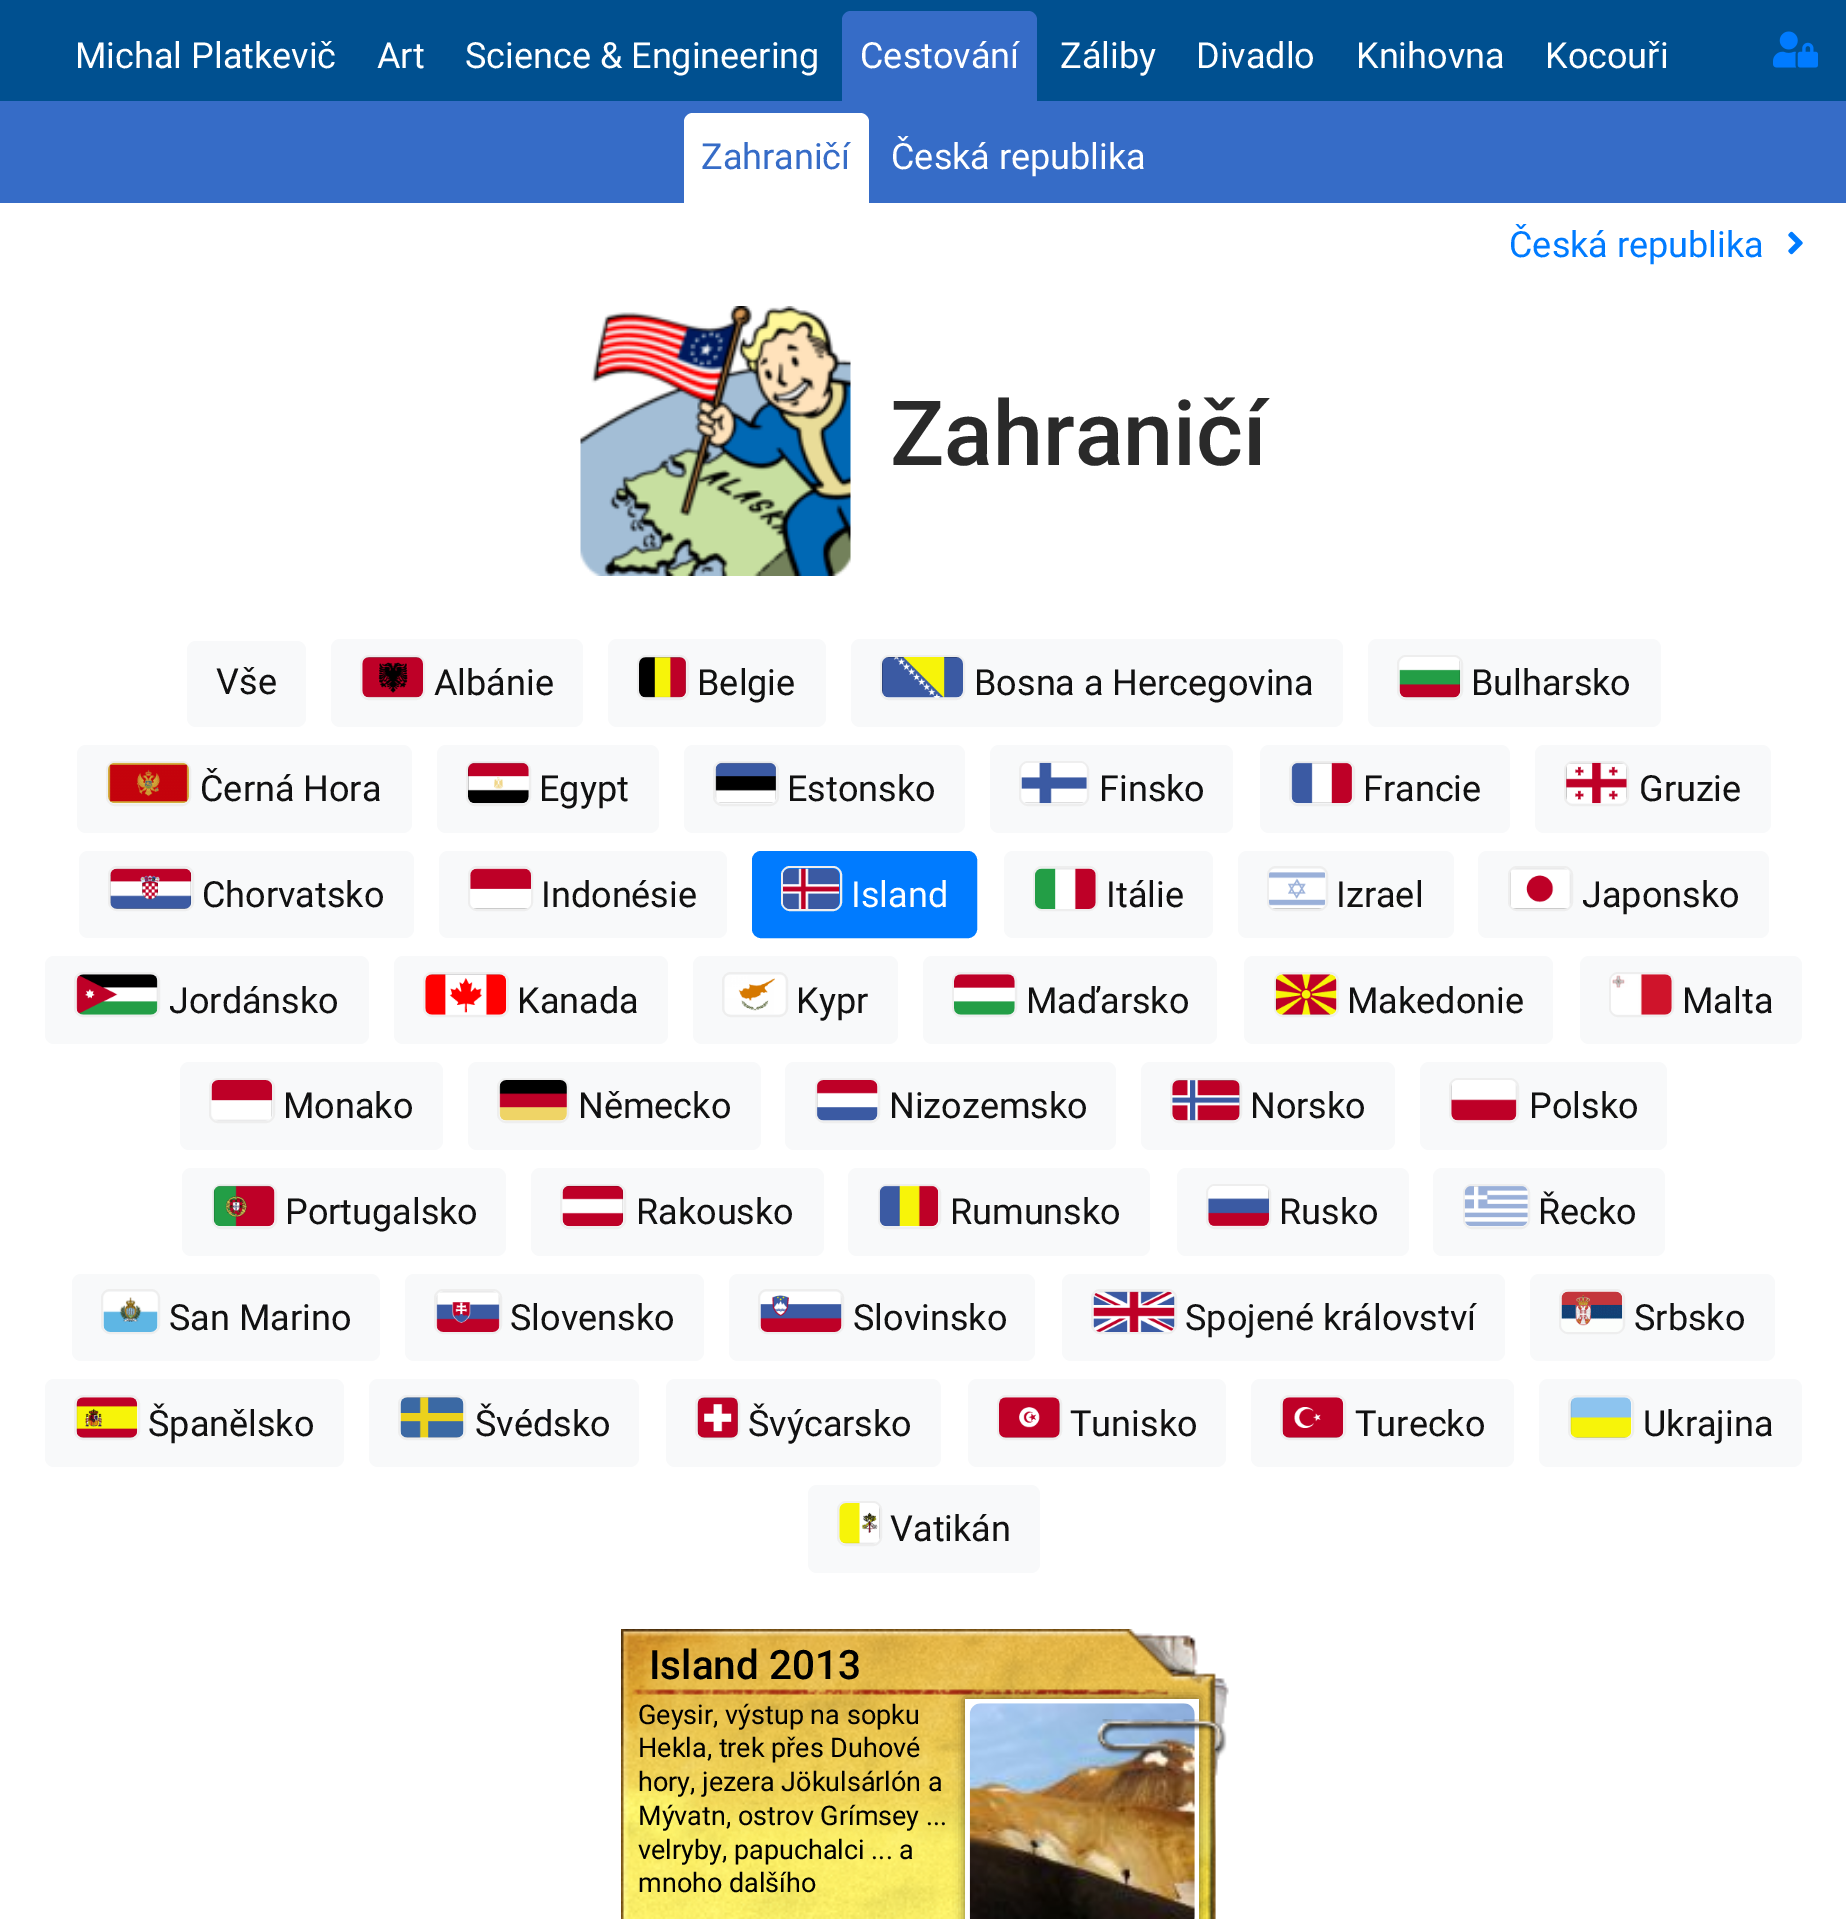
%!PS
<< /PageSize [1846 1919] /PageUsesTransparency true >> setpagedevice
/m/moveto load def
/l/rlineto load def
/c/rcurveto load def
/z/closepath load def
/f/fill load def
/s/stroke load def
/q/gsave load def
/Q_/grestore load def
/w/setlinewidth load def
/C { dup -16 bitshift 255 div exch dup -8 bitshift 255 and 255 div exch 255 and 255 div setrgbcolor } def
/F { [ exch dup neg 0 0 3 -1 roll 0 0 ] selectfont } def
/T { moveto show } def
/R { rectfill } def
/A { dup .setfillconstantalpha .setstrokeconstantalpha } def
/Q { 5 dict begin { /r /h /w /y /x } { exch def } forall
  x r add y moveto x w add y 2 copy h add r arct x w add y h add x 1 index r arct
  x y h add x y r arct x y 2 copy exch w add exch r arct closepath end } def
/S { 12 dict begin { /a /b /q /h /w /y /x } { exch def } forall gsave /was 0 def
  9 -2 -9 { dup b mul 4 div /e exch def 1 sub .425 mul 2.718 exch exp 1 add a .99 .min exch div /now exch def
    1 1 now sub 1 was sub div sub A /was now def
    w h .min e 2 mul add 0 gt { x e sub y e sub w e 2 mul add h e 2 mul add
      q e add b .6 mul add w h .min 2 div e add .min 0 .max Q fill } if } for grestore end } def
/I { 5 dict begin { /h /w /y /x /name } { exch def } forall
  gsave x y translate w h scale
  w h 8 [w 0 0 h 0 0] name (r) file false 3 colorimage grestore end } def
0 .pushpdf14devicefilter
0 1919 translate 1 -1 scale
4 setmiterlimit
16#FFFFFF C
0 0 1846 1919 R
16#005090 C
0 0 1846 101 R
/Roboto-Regular 36 F
16#FFFFFF C
(Michal Platkevič) 75 68 T
(Art) 377 68 T
(Science & Engineering) 465 68 T
16#366CC7 C
851 11 m 177 0 l 5 0 9 4 9 9 c 0 81 l -195 0 l 0 -81 l 0 -5 4 -9 9 -9 c z f
16#FFFFFF C
(Cestování) 860 68 T
(Záliby) 1060 68 T
(Divadlo) 1196 68 T
(Knihovna) 1356 68 T
(Kocouři) 1545 68 T
(1.rgb) 1773 31 45 37 I
16#366CC7 C
0 101 1846 102 R
16#FFFFFF C
693 113 m 167 0 l 5 0 9 4 9 9 c 0 81 l -185 0 l 0 -81 l 0 -5 4 -9 9 -9 c z f
16#366CC7 C
(Zahraničí) 701 169 T
16#FFFFFF C
(Česká republika) 891 169 T
16#007BFF C
(Česká republika) 1509 257 T
(2.rgb) 1788 231 15 24 I
(3.rgb) 580 306 271 270 I
/Roboto-Medium 90 F
16#2A2A2A C
(Zahraničí) 890 465 T
16#F8F9FA C
187 641 119 86 9 Q f
/Roboto-Regular 36 F
16#111111 C
(Vše) 216 694 T
16#F8F9FA C
331 639 252 88 9 Q f
16#EEEEEE C
2 w
361 656 63 43 8 Q s
(4.rgb) 362 657 61 41 I
16#111111 C
(Albánie) 434 695 T
16#F8F9FA C
608 639 218 88 9 Q f
16#EEEEEE C
638 656 50 43 8 Q s
(5.rgb) 639 657 48 41 I
16#111111 C
(Belgie) 697 695 T
16#F8F9FA C
851 639 492 88 9 Q f
16#EEEEEE C
881 656 83 43 8 Q s
(6.rgb) 882 657 81 41 I
16#111111 C
(Bosna a Hercegovina) 974 695 T
16#F8F9FA C
1368 639 293 88 9 Q f
16#EEEEEE C
1398 656 64 43 8 Q s
(7.rgb) 1399 657 62 41 I
16#111111 C
(Bulharsko) 1471 695 T
16#F8F9FA C
77 745 335 88 9 Q f
16#EEEEEE C
107 762 83 43 8 Q s
(8.rgb) 108 762 81 42 I
16#111111 C
(Černá Hora) 200 801 T
16#F8F9FA C
437 745 222 88 9 Q f
16#EEEEEE C
467 762 63 43 8 Q s
(9.rgb) 468 762 61 42 I
16#111111 C
(Egypt) 539 801 T
16#F8F9FA C
684 745 281 88 9 Q f
16#EEEEEE C
714 762 64 43 8 Q s
(10.rgb) 715 762 62 41 I
16#111111 C
(Estonsko) 787 801 T
16#F8F9FA C
990 745 243 88 9 Q f
16#EEEEEE C
1020 762 68 43 8 Q s
(11.rgb) 1021 762 66 42 I
16#111111 C
(Finsko) 1099 801 T
16#F8F9FA C
1260 745 250 88 9 Q f
16#EEEEEE C
1290 762 64 43 8 Q s
(12.rgb) 1291 762 62 42 I
16#111111 C
(Francie) 1363 801 T
16#F8F9FA C
1535 745 236 88 9 Q f
16#EEEEEE C
1565 762 63 43 8 Q s
(13.rgb) 1566 762 61 42 I
16#111111 C
(Gruzie) 1639 801 T
16#F8F9FA C
79 851 335 87 9 Q f
16#EEEEEE C
109 867 84 43 8 Q s
(14.rgb) 110 868 82 41 I
16#111111 C
(Chorvatsko) 202 907 T
16#F8F9FA C
439 851 288 87 9 Q f
16#EEEEEE C
469 867 63 43 8 Q s
(15.rgb) 470 868 61 41 I
16#111111 C
(Indonésie) 541 907 T
16#007BFF C
753 852 223 85 8 Q q f Q_
s
16#EEEEEE C
782 867 59 43 8 Q s
(16.rgb) 783 868 57 41 I
16#FFFFFF C
(Island) 851 907 T
16#F8F9FA C
1004 851 209 87 9 Q f
16#EEEEEE C
1034 867 63 43 8 Q s
(17.rgb) 1035 868 61 41 I
16#111111 C
(Itálie) 1106 907 T
16#F8F9FA C
1238 851 216 87 9 Q f
16#EEEEEE C
1268 867 59 43 8 Q s
(18.rgb) 1269 869 57 40 I
16#111111 C
(Izrael) 1336 907 T
16#F8F9FA C
1478 851 291 87 9 Q f
16#EEEEEE C
1509 867 63 43 8 Q s
(19.rgb) 1510 868 61 41 I
16#111111 C
(Japonsko) 1582 907 T
16#F8F9FA C
45 956 324 88 9 Q f
16#EEEEEE C
75 973 84 43 8 Q s
(20.rgb) 76 974 82 41 I
16#111111 C
(Jordánsko) 169 1013 T
16#F8F9FA C
394 956 274 88 9 Q f
16#EEEEEE C
424 973 84 43 8 Q s
(21.rgb) 425 974 82 41 I
16#111111 C
(Kanada) 517 1013 T
16#F8F9FA C
693 956 205 88 9 Q f
16#EEEEEE C
723 973 64 43 8 Q s
(22.rgb) 725 975 60 39 I
16#111111 C
(Kypr) 796 1013 T
16#F8F9FA C
923 956 294 88 9 Q f
16#EEEEEE C
953 973 63 43 8 Q s
(23.rgb) 954 974 61 41 I
16#111111 C
(Maďarsko) 1026 1013 T
16#F8F9FA C
1244 956 309 88 9 Q f
16#EEEEEE C
1275 973 63 43 8 Q s
(24.rgb) 1275 974 62 41 I
16#111111 C
(Makedonie) 1347 1013 T
16#F8F9FA C
1580 956 222 88 9 Q f
16#EEEEEE C
1610 973 63 43 8 Q s
(25.rgb) 1611 974 61 41 I
16#111111 C
(Malta) 1682 1013 T
16#F8F9FA C
180 1062 263 88 9 Q f
16#EEEEEE C
210 1079 64 43 8 Q s
(26.rgb) 211 1080 62 41 I
16#111111 C
(Monako) 283 1118 T
16#F8F9FA C
468 1062 293 88 9 Q f
16#EEEEEE C
498 1079 70 43 8 Q s
(27.rgb) 499 1080 68 41 I
16#111111 C
(Německo) 578 1118 T
16#F8F9FA C
785 1062 331 88 9 Q f
16#EEEEEE C
816 1079 63 43 8 Q s
(28.rgb) 816 1080 62 41 I
16#111111 C
(Nizozemsko) 889 1118 T
16#F8F9FA C
1141 1062 254 88 9 Q f
16#EEEEEE C
1171 1079 70 43 8 Q s
(29.rgb) 1172 1080 68 41 I
16#111111 C
(Norsko) 1250 1118 T
16#F8F9FA C
1420 1062 247 88 9 Q f
16#EEEEEE C
1450 1079 68 43 8 Q s
(30.rgb) 1451 1080 66 41 I
16#111111 C
(Polsko) 1529 1118 T
16#F8F9FA C
182 1168 324 88 9 Q f
16#EEEEEE C
213 1185 63 43 8 Q s
(31.rgb) 213 1185 62 42 I
16#111111 C
(Portugalsko) 285 1224 T
16#F8F9FA C
531 1168 293 88 9 Q f
16#EEEEEE C
561 1185 64 43 8 Q s
(32.rgb) 562 1185 62 42 I
16#111111 C
(Rakousko) 636 1224 T
16#F8F9FA C
848 1168 302 88 9 Q f
16#EEEEEE C
879 1185 61 43 8 Q s
(33.rgb) 879 1185 60 42 I
16#111111 C
(Rumunsko) 950 1224 T
16#F8F9FA C
1177 1168 232 88 9 Q f
16#EEEEEE C
1207 1185 63 43 8 Q s
(34.rgb) 1208 1186 61 41 I
16#111111 C
(Rusko) 1279 1224 T
16#F8F9FA C
1433 1168 232 88 9 Q f
16#EEEEEE C
1464 1185 65 43 8 Q s
(35.rgb) 1464 1186 64 41 I
16#111111 C
(Řecko) 1538 1224 T
16#F8F9FA C
72 1274 308 87 9 Q f
16#EEEEEE C
102 1290 57 43 8 Q s
(36.rgb) 103 1292 55 40 I
16#111111 C
(San Marino) 169 1330 T
16#F8F9FA C
405 1274 299 87 9 Q f
16#EEEEEE C
435 1290 66 43 8 Q s
(37.rgb) 436 1291 64 41 I
16#111111 C
(Slovensko) 510 1330 T
16#F8F9FA C
729 1274 306 87 9 Q f
16#EEEEEE C
759 1290 84 43 8 Q s
(38.rgb) 760 1292 82 40 I
16#111111 C
(Slovinsko) 853 1330 T
16#F8F9FA C
1062 1274 443 87 9 Q f
16#EEEEEE C
1092 1290 84 43 8 Q s
(39.rgb) 1093 1291 82 41 I
16#111111 C
(Spojené království) 1185 1330 T
16#F8F9FA C
1530 1274 245 87 9 Q f
16#EEEEEE C
1560 1290 64 43 8 Q s
(40.rgb) 1561 1291 62 41 I
16#111111 C
(Srbsko) 1634 1330 T
16#F8F9FA C
45 1379 299 88 9 Q f
16#EEEEEE C
75 1396 64 43 8 Q s
(41.rgb) 76 1397 62 41 I
16#111111 C
(Španělsko) 148 1436 T
16#F8F9FA C
369 1379 270 88 9 Q f
16#EEEEEE C
399 1396 66 43 8 Q s
(42.rgb) 400 1397 64 41 I
16#111111 C
(Švédsko) 475 1436 T
16#F8F9FA C
666 1379 275 88 9 Q f
16#EEEEEE C
696 1396 43 43 8 Q s
(43.rgb) 697 1397 41 41 I
16#111111 C
(Švýcarsko) 748 1436 T
16#F8F9FA C
968 1379 258 88 9 Q f
16#EEEEEE C
998 1396 63 43 8 Q s
(44.rgb) 999 1397 61 41 I
16#111111 C
(Tunisko) 1070 1436 T
16#F8F9FA C
1251 1379 263 88 9 Q f
16#EEEEEE C
1281 1396 64 43 8 Q s
(45.rgb) 1282 1397 62 41 I
16#111111 C
(Turecko) 1355 1436 T
16#F8F9FA C
1539 1379 263 88 9 Q f
16#EEEEEE C
1569 1396 64 43 8 Q s
(46.rgb) 1570 1397 62 41 I
16#111111 C
(Ukrajina) 1643 1436 T
16#F8F9FA C
808 1485 232 88 9 Q f
16#EEEEEE C
838 1502 43 43 8 Q s
(47.rgb) 839 1503 41 41 I
16#111111 C
(Vatikán) 890 1541 T
(48.rgb) 621 1629 608 290 I
/Roboto-Medium 40.5 F
16#000000 C
(Island 2013) 649 1679 T
/Roboto-Regular 27 F
(Geysir, výstup na sopku) 638 1724 T
(Hekla, trek přes Duhové) 638 1757 T
(hory, jezera Jökulsárlón a) 638 1791 T
(Mývatn, ostrov Grímsey ...) 638 1825 T
(velryby, papuchalci ... a) 638 1859 T
(mnoho dalšího) 638 1892 T
965 1699 234 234 0 5.5 .5 S
16#FFFFFF C
965 1699 234 220 R
(49.rgb) 969 1703 226 216 I
(50.rgb) 1095 1719 132 37 I
.poppdf14devicefilter showpage
